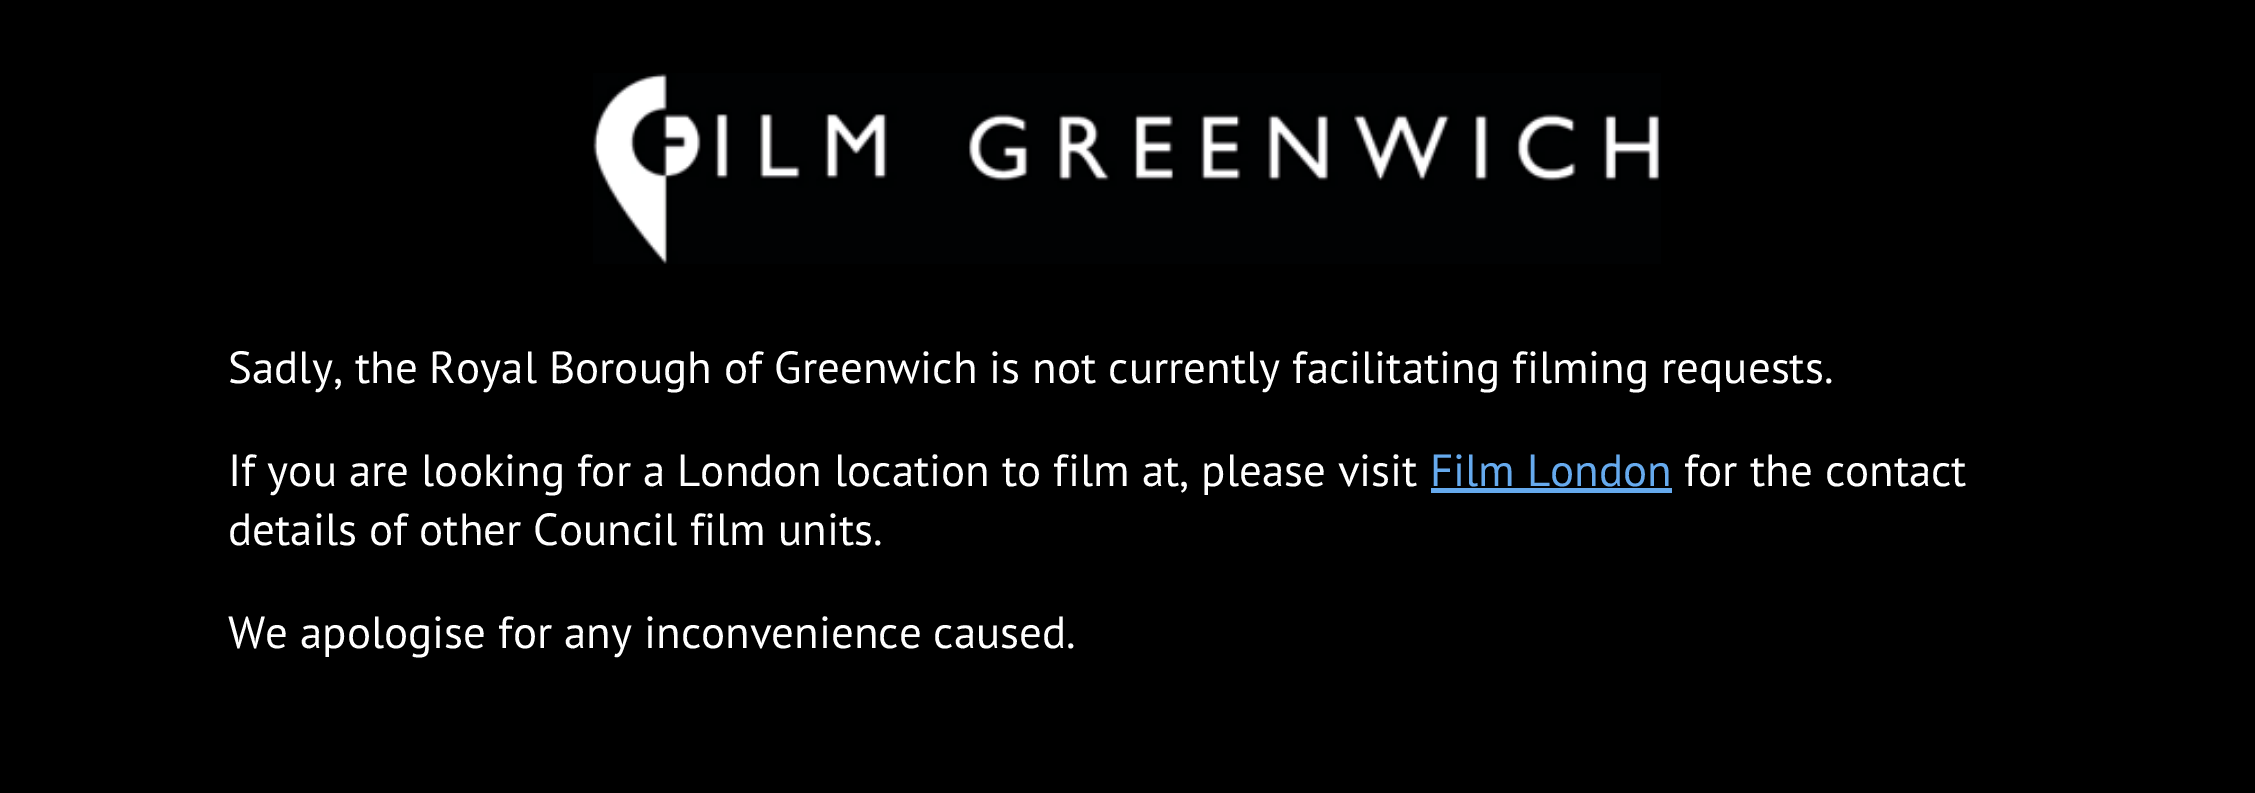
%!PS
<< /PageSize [2255 793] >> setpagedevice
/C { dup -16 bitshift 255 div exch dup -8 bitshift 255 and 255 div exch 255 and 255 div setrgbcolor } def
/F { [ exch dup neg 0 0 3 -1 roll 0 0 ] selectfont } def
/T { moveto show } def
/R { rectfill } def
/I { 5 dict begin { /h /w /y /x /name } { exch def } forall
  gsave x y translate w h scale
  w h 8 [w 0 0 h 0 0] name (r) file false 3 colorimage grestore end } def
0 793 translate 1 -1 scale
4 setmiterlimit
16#000000 C
0 0 2255 793 R
(1.rgb) 593 73 1068 191 I
/PTSans-Regular 45 F
16#FFFFFF C
(Sadly, the Royal Borough of Greenwich is not currently facilitating filming requests.) 228 383 T
(If you are looking for a London location to film at, please visit) 228 486 T
16#66AAEE C
(Film London) 1430 486 T
1431 488 241 5 R
16#FFFFFF C
(for the contact) 1684 486 T
(details of other Council film units.) 228 545 T
(We apologise for any inconvenience caused.) 228 648 T
showpage
